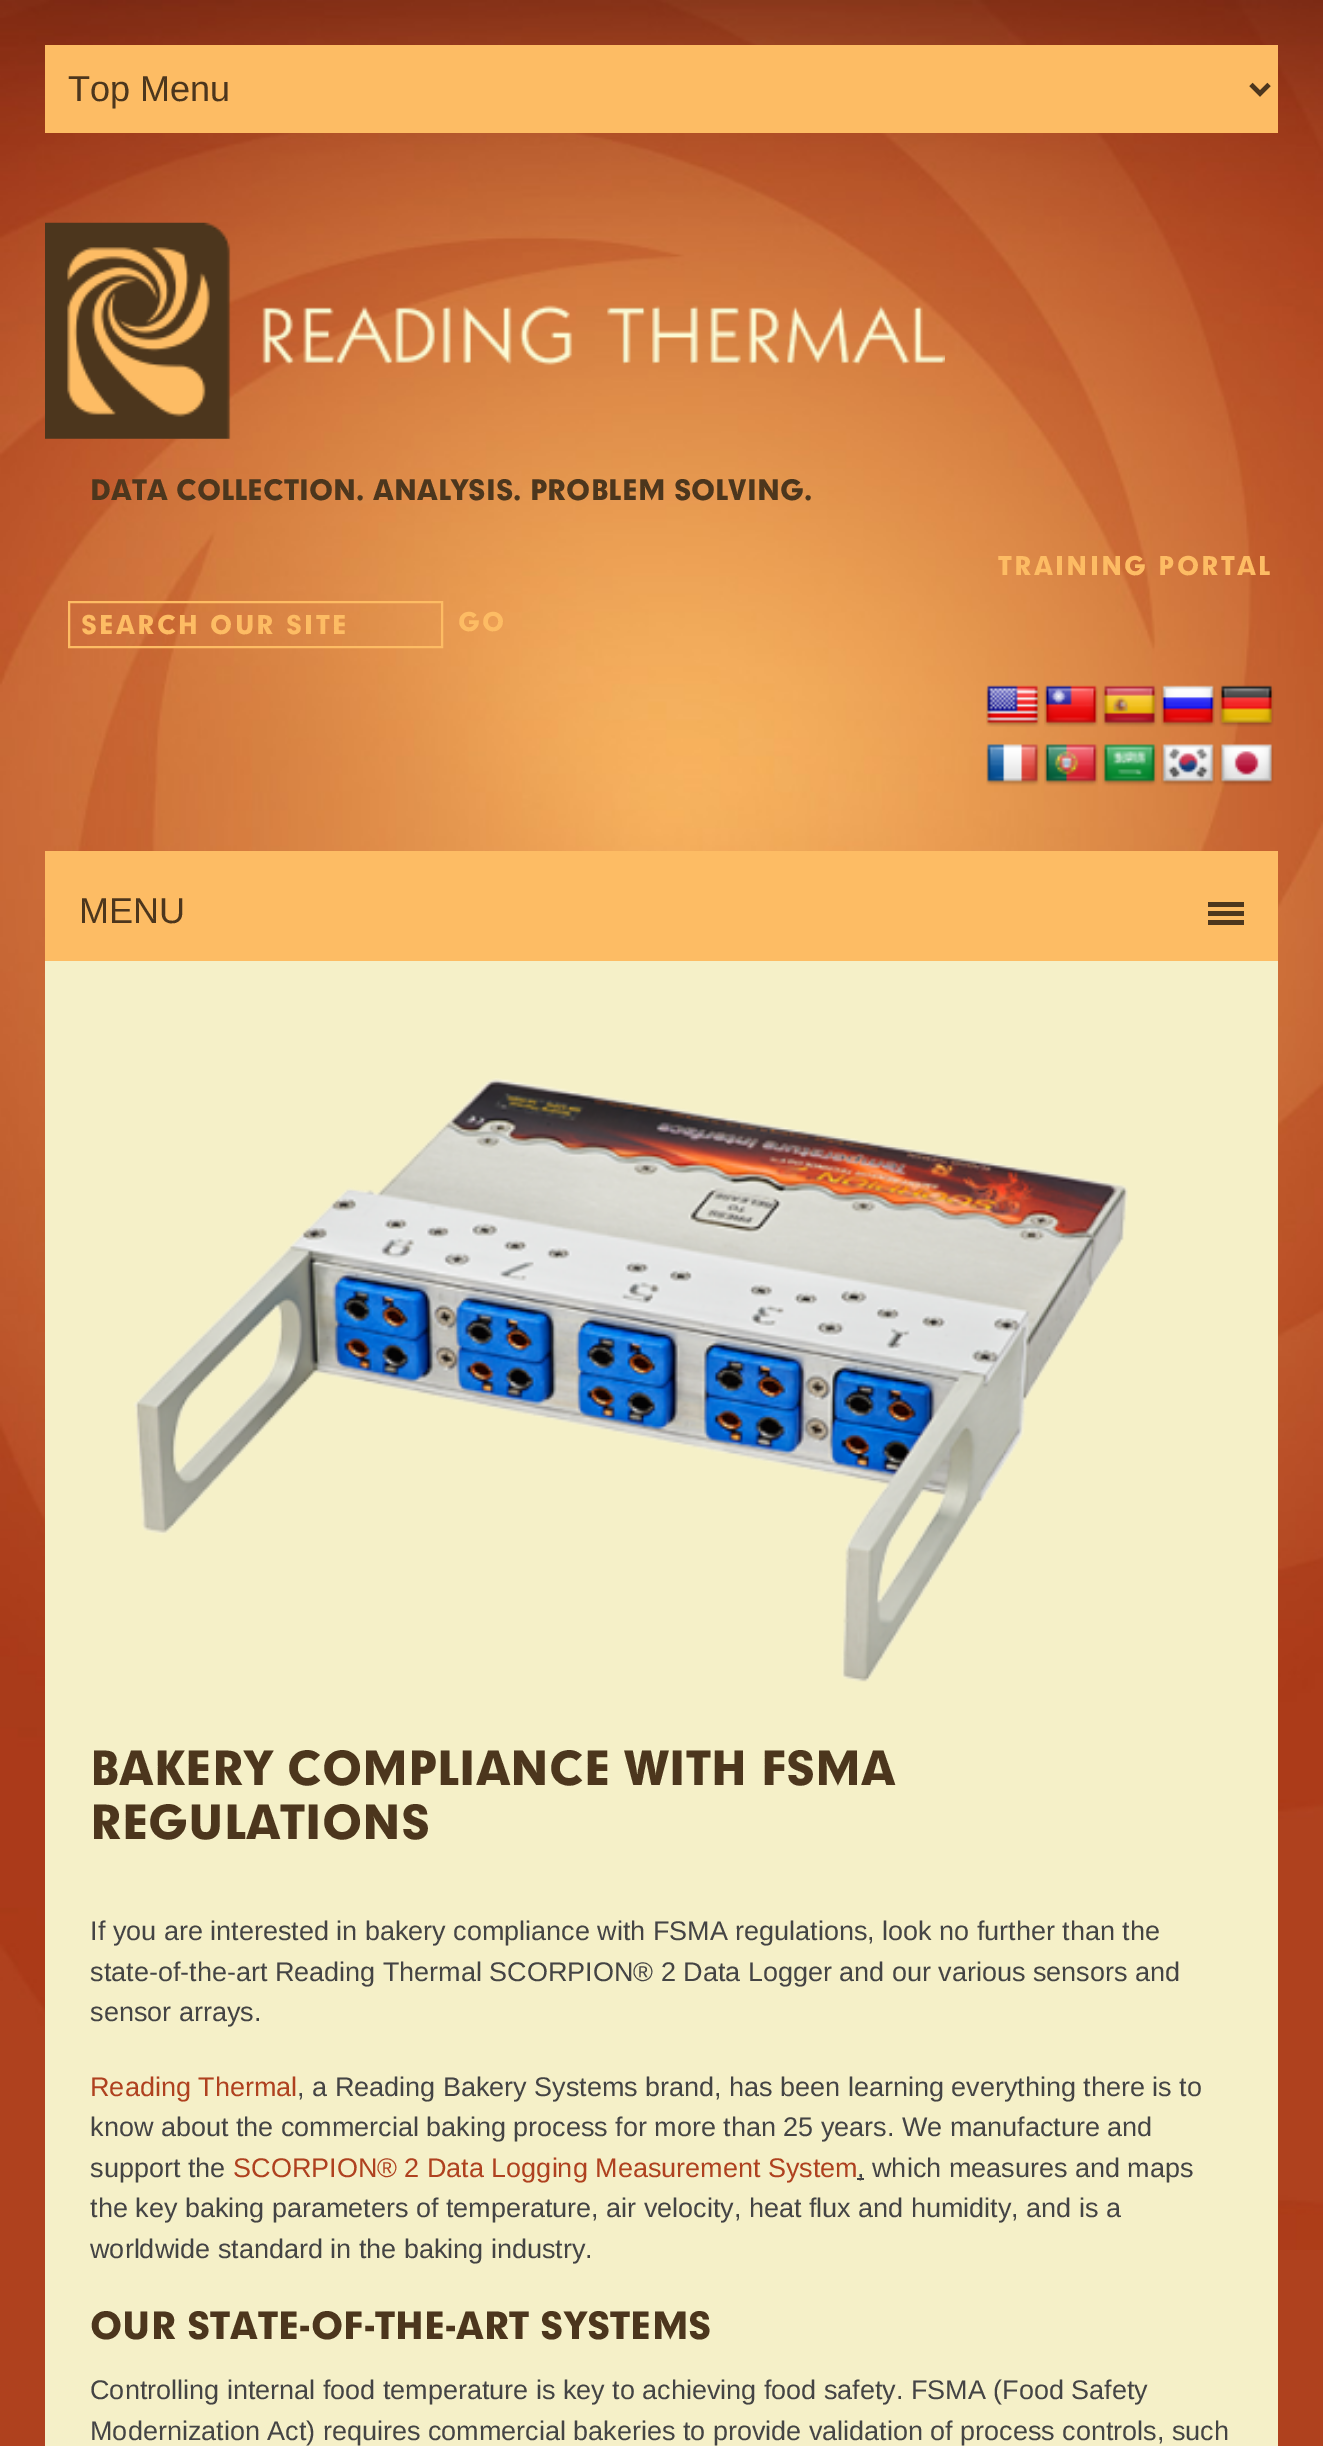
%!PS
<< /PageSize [1323 2446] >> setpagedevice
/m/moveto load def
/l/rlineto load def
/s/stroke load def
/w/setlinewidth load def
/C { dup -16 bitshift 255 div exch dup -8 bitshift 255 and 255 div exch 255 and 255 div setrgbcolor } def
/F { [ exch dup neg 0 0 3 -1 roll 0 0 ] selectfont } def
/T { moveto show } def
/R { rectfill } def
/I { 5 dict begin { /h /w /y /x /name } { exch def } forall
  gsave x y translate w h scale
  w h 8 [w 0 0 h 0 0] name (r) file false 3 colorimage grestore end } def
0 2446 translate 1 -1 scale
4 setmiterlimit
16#AF411E C
0 0 1323 2446 R
(1.rgb) 0 0 1323 2250 I
16#FDBC64 C
45 45 1233 88 R
16#4C361D C
4.5 w
1251 84.5 m 9 9 l 9 -9 l s
/LiberationSans-Regular 36 F
(Top Menu) 68 101 T
(2.rgb) 45 222 900 217 I
/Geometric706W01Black-Black 27 F
(DATA COLLECTION. ANALYSIS. PROBLEM SOLVING.) 90 500 T
/Geometric706W01Black-Black 24.75 F
16#FDBC64 C
998 575 m 2.25 0 (TRAINING PORTAL) ashow
2 w
69 602 373 45 rectstroke
81 634 m 2.25 0 (SEARCH OUR SITE) ashow
458 631 m 2.25 0 (GO) ashow
(3.rgb) 986 685 54 42 I
(4.rgb) 1044 685 54 42 I
(5.rgb) 1102 685 55 42 I
(6.rgb) 1161 685 54 42 I
(7.rgb) 1219 685 55 42 I
(8.rgb) 986 744 54 42 I
(9.rgb) 1044 744 54 42 I
(10.rgb) 1102 744 55 42 I
(11.rgb) 1161 744 54 42 I
(12.rgb) 1219 744 55 42 I
45 851 1233 110 R
/LiberationSans-Regular 36 F
16#4C361D C
(MENU) 79 923 T
1208 920 36 5 R
1208 902 36 5 R
1208 911 36 5 R
16#F5F0C8 C
45 961 1233 1485 R
(13.rgb) 133 1078 995 604 I
/Geometric706W01Black-Black 45 F
16#4C361D C
(BAKERY COMPLIANCE WITH FSMA) 90 1785 T
(REGULATIONS) 90 1839 T
/LiberationSans-Regular 27 F
16#444444 C
(If you are interested in bakery compliance with FSMA regulations, look no further than the) 90 1940 T
(state-of-the-art Reading Thermal SCORPION® 2 Data Logger and our various sensors and) 90 1981 T
(sensor arrays.) 90 2021 T
16#AF411F C
(Reading Thermal) 90 2096 T
16#444444 C
(, a Reading Bakery Systems brand, has been learning everything there is to) 297 2096 T
(know about the commercial baking process for more than 25 years. We manufacture and) 90 2136 T
(support the) 90 2177 T
16#AF411F C
(SCORPION® 2 Data Logging Measurement System) 233 2177 T
16#444444 C
857 2178 7 2 R
(, which measures and maps) 857 2177 T
(the key baking parameters of temperature, air velocity, heat flux and humidity, and is a) 90 2217 T
(worldwide standard in the baking industry.) 90 2258 T
/Geometric706W01Black-Black 36 F
16#4C361D C
(OUR STATE-OF-THE-ART SYSTEMS) 90 2339 T
/LiberationSans-Regular 27 F
16#444444 C
(Controlling internal food temperature is key to achieving food safety. FSMA \(Food Safety) 90 2399 T
(Modernization Act\) requires commercial bakeries to provide validation of process controls, such) 90 2440 T
showpage
